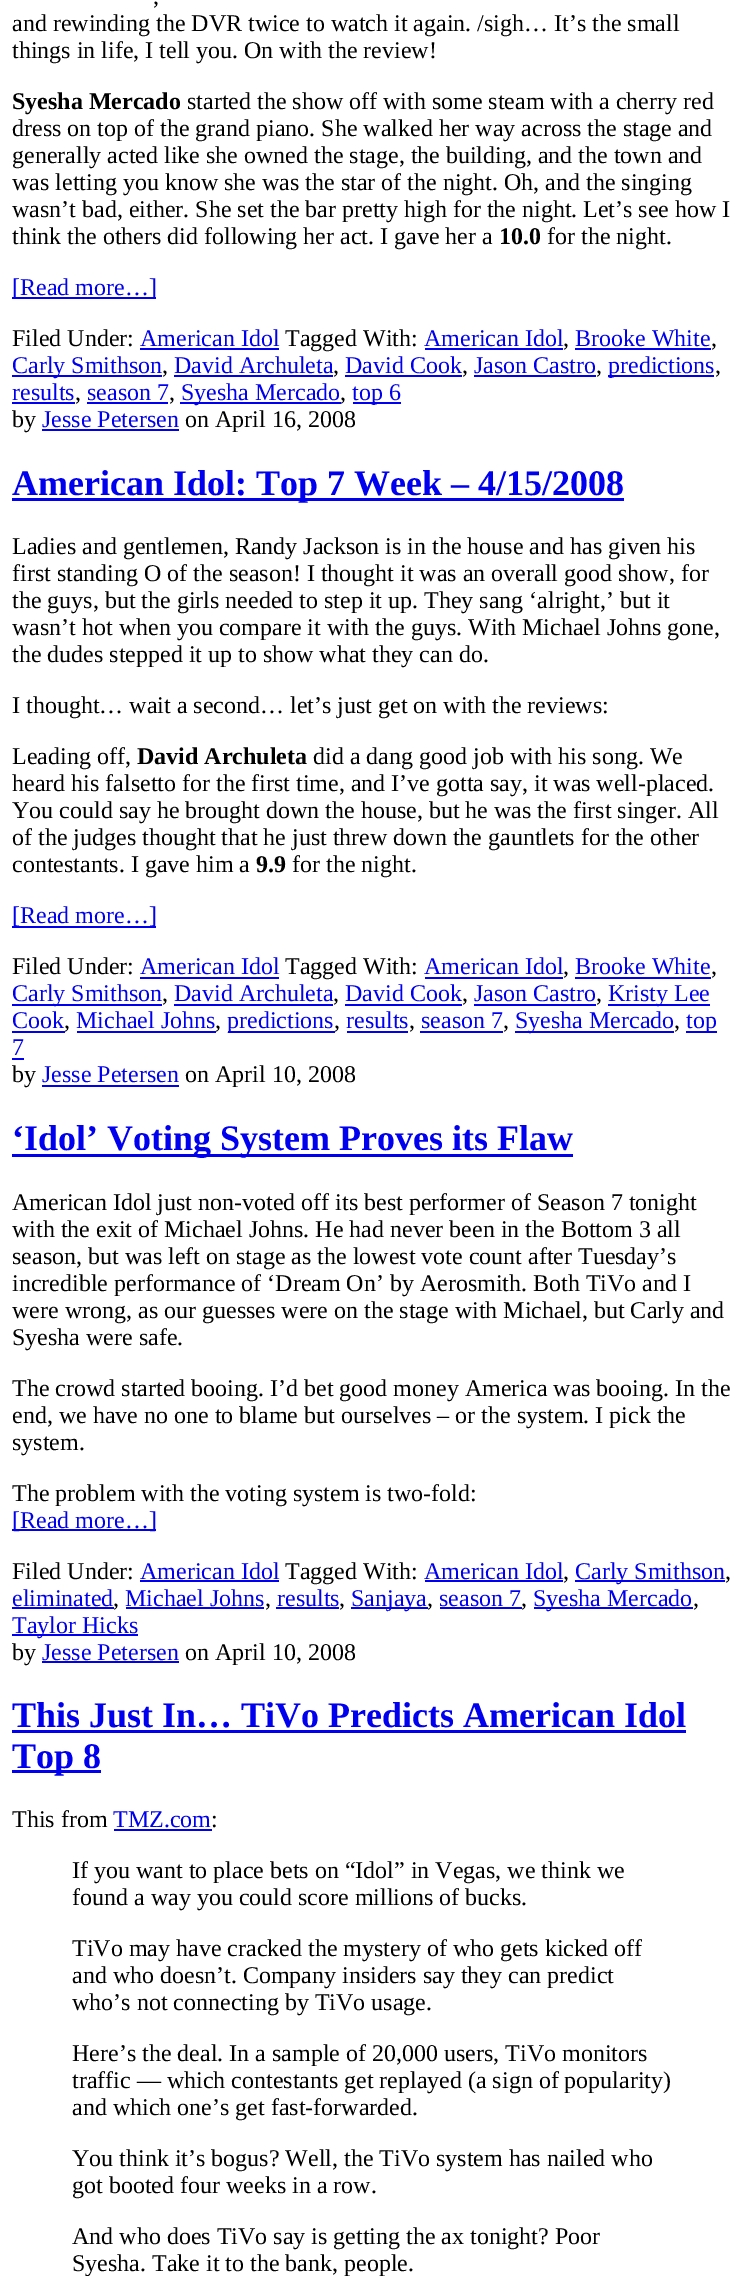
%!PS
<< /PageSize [744 2276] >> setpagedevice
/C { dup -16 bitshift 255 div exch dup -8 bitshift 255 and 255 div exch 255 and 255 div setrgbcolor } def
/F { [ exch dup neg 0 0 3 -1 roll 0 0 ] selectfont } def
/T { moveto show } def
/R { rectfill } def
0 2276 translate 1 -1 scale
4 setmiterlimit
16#FFFFFF C
0 0 744 2276 R
/LiberationSerif-Regular 24 F
16#000000 C
(,) 153 4 T
(and rewinding the DVR twice to watch it again. /sigh… It’s the small) 12 31 T
(things in life, I tell you. On with the review!) 12 58 T
/LiberationSerif-Bold 24 F
(Syesha Mercado) 12 109 T
/LiberationSerif-Regular 24 F
(started the show off with some steam with a cherry red) 187 109 T
(dress on top of the grand piano. She walked her way across the stage and) 12 136 T
(generally acted like she owned the stage, the building, and the town and) 12 163 T
(was letting you know she was the star of the night. Oh, and the singing) 12 190 T
(wasn’t bad, either. She set the bar pretty high for the night. Let’s see how I) 12 217 T
(think the others did following her act. I gave her a) 12 244 T
/LiberationSerif-Bold 24 F
(10.0) 499 244 T
/LiberationSerif-Regular 24 F
(for the night.) 547 244 T
16#0000EE C
12 297 144 2 R
([Read more…]) 12 295 T
16#000000 C
(Filed Under:) 12 346 T
16#0000EE C
(American Idol) 140 346 T
140 348 139 2 R
16#000000 C
(Tagged With:) 285 346 T
16#0000EE C
(American Idol) 424 346 T
16#000000 C
(,) 563 346 T
16#0000EE C
425 348 138 2 R
(Brooke White) 575 346 T
16#000000 C
(,) 711 346 T
16#0000EE C
575 348 136 2 R
12 375 150 2 R
(Carly Smithson) 12 373 T
16#000000 C
(,) 162 373 T
16#0000EE C
(David Archuleta) 174 373 T
16#000000 C
(,) 333 373 T
16#0000EE C
174 375 159 2 R
(David Cook) 345 373 T
16#000000 C
(,) 462 373 T
16#0000EE C
345 375 117 2 R
(Jason Castro) 474 373 T
16#000000 C
(,) 596 373 T
16#0000EE C
474 375 122 2 R
608 375 106 2 R
(predictions) 608 373 T
16#000000 C
(,) 715 373 T
16#0000EE C
(results) 12 400 T
16#000000 C
(,) 75 400 T
16#0000EE C
12 402 63 2 R
(season 7) 87 400 T
16#000000 C
(,) 169 400 T
16#0000EE C
87 402 81 2 R
180 402 161 2 R
(Syesha Mercado) 181 400 T
16#000000 C
(,) 340 400 T
16#0000EE C
353 402 48 2 R
(top 6) 352 400 T
16#000000 C
(by) 12 427 T
16#0000EE C
(Jesse Petersen) 42 427 T
42 429 137 2 R
16#000000 C
(on April 16, 2008) 185 427 T
16#0000EE C
12 498 612 3 R
/LiberationSerif-Bold 36 F
(American Idol: Top 7 Week – 4/15/2008) 12 495 T
/LiberationSerif-Regular 24 F
16#000000 C
(Ladies and gentlemen, Randy Jackson is in the house and has given his) 12 554 T
(first standing O of the season! I thought it was an overall good show, for) 12 581 T
(the guys, but the girls needed to step it up. They sang ‘alright,’ but it) 12 608 T
(wasn’t hot when you compare it with the guys. With Michael Johns gone,) 12 635 T
(the dudes stepped it up to show what they can do.) 12 662 T
(I thought… wait a second… let’s just get on with the reviews:) 12 713 T
(Leading off,) 12 764 T
/LiberationSerif-Bold 24 F
(David Archuleta) 137 764 T
/LiberationSerif-Regular 24 F
(did a dang good job with his song. We) 313 764 T
(heard his falsetto for the first time, and I’ve gotta say, it was well-placed.) 12 791 T
(You could say he brought down the house, but he was the first singer. All) 12 818 T
(of the judges thought that he just threw down the gauntlets for the other) 12 845 T
(contestants. I gave him a) 12 872 T
/LiberationSerif-Bold 24 F
(9.9) 256 872 T
/LiberationSerif-Regular 24 F
(for the night.) 292 872 T
16#0000EE C
12 926 144 2 R
([Read more…]) 12 923 T
16#000000 C
(Filed Under:) 12 974 T
16#0000EE C
(American Idol) 140 974 T
140 977 139 2 R
16#000000 C
(Tagged With:) 285 974 T
16#0000EE C
(American Idol) 424 974 T
16#000000 C
(,) 563 974 T
16#0000EE C
425 977 138 2 R
(Brooke White) 575 974 T
16#000000 C
(,) 711 974 T
16#0000EE C
575 977 136 2 R
12 1004 150 2 R
(Carly Smithson) 12 1001 T
16#000000 C
(,) 162 1001 T
16#0000EE C
(David Archuleta) 174 1001 T
16#000000 C
(,) 333 1001 T
16#0000EE C
174 1004 159 2 R
(David Cook) 345 1001 T
16#000000 C
(,) 462 1001 T
16#0000EE C
345 1004 117 2 R
(Jason Castro) 474 1001 T
16#000000 C
(,) 596 1001 T
16#0000EE C
474 1004 122 2 R
608 1004 102 2 R
(Kristy Lee) 608 1001 T
(Cook) 12 1028 T
12 1031 53 2 R
16#000000 C
(,) 64 1028 T
16#0000EE C
(Michael Johns) 76 1028 T
16#000000 C
(,) 215 1028 T
16#0000EE C
77 1031 139 2 R
228 1031 107 2 R
(predictions) 227 1028 T
16#000000 C
(,) 334 1028 T
16#0000EE C
(results) 346 1028 T
16#000000 C
(,) 409 1028 T
16#0000EE C
347 1031 61 2 R
(season 7) 421 1028 T
16#000000 C
(,) 503 1028 T
16#0000EE C
420 1031 83 2 R
515 1031 159 2 R
(Syesha Mercado) 515 1028 T
16#000000 C
(,) 674 1028 T
16#0000EE C
686 1031 31 2 R
(top) 686 1028 T
(7) 12 1055 T
12 1058 12 2 R
16#000000 C
(by) 12 1082 T
16#0000EE C
(Jesse Petersen) 42 1082 T
42 1085 137 2 R
16#000000 C
(on April 10, 2008) 185 1082 T
16#0000EE C
12 1154 561 3 R
/LiberationSerif-Bold 36 F
(‘Idol’ Voting System Proves its Flaw) 12 1150 T
/LiberationSerif-Regular 24 F
16#000000 C
(American Idol just non-voted off its best performer of Season 7 tonight) 12 1210 T
(with the exit of Michael Johns. He had never been in the Bottom 3 all) 12 1237 T
(season, but was left on stage as the lowest vote count after Tuesday’s) 12 1264 T
(incredible performance of ‘Dream On’ by Aerosmith. Both TiVo and I) 12 1291 T
(were wrong, as our guesses were on the stage with Michael, but Carly and) 12 1318 T
(Syesha were safe.) 12 1345 T
(The crowd started booing. I’d bet good money America was booing. In the) 12 1396 T
(end, we have no one to blame but ourselves – or the system. I pick the) 12 1423 T
(system.) 12 1450 T
(The problem with the voting system is two-fold:) 12 1501 T
16#0000EE C
12 1529 144 2 R
([Read more…]) 12 1528 T
16#000000 C
(Filed Under:) 12 1579 T
16#0000EE C
(American Idol) 140 1579 T
140 1580 139 2 R
16#000000 C
(Tagged With:) 285 1579 T
16#0000EE C
(American Idol) 424 1579 T
16#000000 C
(,) 563 1579 T
16#0000EE C
425 1580 138 2 R
575 1580 150 2 R
(Carly Smithson) 575 1579 T
16#000000 C
(,) 725 1579 T
16#0000EE C
(eliminated) 12 1606 T
16#000000 C
(,) 113 1606 T
16#0000EE C
12 1607 102 2 R
(Michael Johns) 125 1606 T
16#000000 C
(,) 265 1606 T
16#0000EE C
126 1607 138 2 R
(results) 277 1606 T
16#000000 C
(,) 339 1606 T
16#0000EE C
276 1607 63 2 R
351 1607 77 2 R
(Sanjaya) 351 1606 T
16#000000 C
(,) 427 1606 T
16#0000EE C
(season 7) 439 1606 T
16#000000 C
(,) 521 1606 T
16#0000EE C
440 1607 82 2 R
534 1607 159 2 R
(Syesha Mercado) 533 1606 T
16#000000 C
(,) 693 1606 T
16#0000EE C
12 1634 126 2 R
(Taylor Hicks) 12 1633 T
16#000000 C
(by) 12 1660 T
16#0000EE C
(Jesse Petersen) 42 1660 T
42 1661 137 2 R
16#000000 C
(on April 10, 2008) 185 1660 T
/LiberationSerif-Bold 36 F
16#0000EE C
(This Just In… TiVo Predicts American Idol) 12 1727 T
12 1730 674 3 R
12 1770 89 3 R
(Top 8) 12 1768 T
/LiberationSerif-Regular 24 F
16#000000 C
(This from) 12 1827 T
16#0000EE C
(TMZ.com) 113 1827 T
114 1829 98 2 R
16#000000 C
(:) 211 1827 T
(If you want to place bets on “Idol” in Vegas, we think we) 72 1878 T
(found a way you could score millions of bucks.) 72 1905 T
(TiVo may have cracked the mystery of who gets kicked off) 72 1956 T
(and who doesn’t. Company insiders say they can predict) 72 1983 T
(who’s not connecting by TiVo usage.) 72 2010 T
(Here’s the deal. In a sample of 20,000 users, TiVo monitors) 72 2061 T
(traffic — which contestants get replayed \(a sign of popularity\)) 72 2088 T
(and which one’s get fast-forwarded.) 72 2115 T
(You think it’s bogus? Well, the TiVo system has nailed who) 72 2166 T
(got booted four weeks in a row.) 72 2193 T
(And who does TiVo say is getting the ax tonight? Poor) 72 2244 T
(Syesha. Take it to the bank, people.) 72 2271 T
showpage
